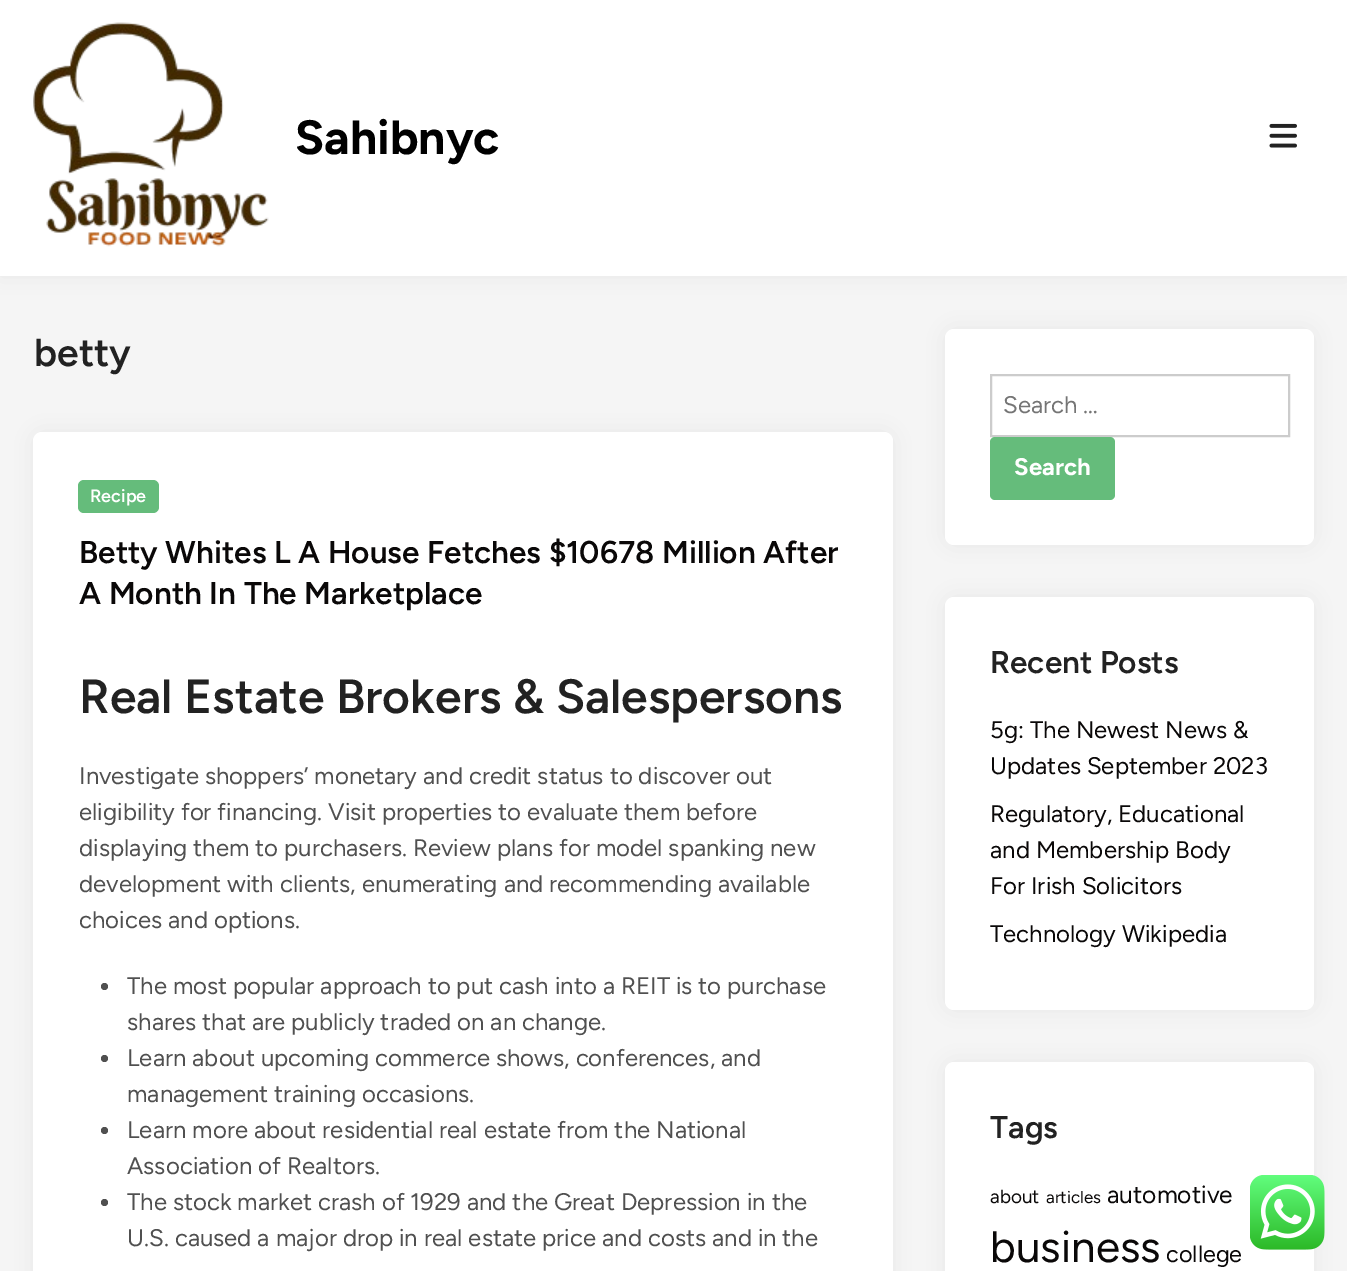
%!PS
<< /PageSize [1347 1271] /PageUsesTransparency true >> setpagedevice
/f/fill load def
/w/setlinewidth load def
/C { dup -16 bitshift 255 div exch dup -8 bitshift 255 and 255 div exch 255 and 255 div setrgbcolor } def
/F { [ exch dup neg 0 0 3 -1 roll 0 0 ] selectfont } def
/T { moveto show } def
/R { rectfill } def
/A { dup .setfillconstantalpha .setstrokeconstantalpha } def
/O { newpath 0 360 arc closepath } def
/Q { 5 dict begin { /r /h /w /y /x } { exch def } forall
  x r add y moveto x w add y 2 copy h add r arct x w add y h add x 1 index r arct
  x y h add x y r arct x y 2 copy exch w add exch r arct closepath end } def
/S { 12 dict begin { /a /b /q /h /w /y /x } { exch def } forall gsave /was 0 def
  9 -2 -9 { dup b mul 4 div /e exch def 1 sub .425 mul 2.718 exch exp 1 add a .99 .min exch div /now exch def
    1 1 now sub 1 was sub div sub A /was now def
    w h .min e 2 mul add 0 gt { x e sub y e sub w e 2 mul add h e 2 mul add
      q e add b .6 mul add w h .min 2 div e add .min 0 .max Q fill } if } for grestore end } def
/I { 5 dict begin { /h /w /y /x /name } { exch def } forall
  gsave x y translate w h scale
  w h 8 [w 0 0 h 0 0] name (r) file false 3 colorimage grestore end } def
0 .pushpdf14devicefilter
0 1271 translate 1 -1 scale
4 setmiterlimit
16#F5F5F5 C
0 0 1347 1271 R
16#000000 C
0 0 1347 276 0 11 .06 S
16#FFFFFF C
0 0 1347 276 R
(1.rgb) 33 22 236 225 I
/Figtree-Bold 48 F
16#000000 C
(Sahibnyc) 295 154 T
(2.rgb) 1269 123 28 25 I
/Figtree-SemiBold 39 F
16#222222 C
(betty) 34 366 T
16#000000 C
33 432 860 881 9 11 .06 S
16#FFFFFF C
33 432 860 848 9 Q f
16#65BC7B C
78 480 81 33 6 Q f
/Figtree-SemiBold 18 F
16#FFFFFF C
(Recipe) 90 502 T
/Figtree-SemiBold 31.5 F
16#0A0808 C
(Betty Whites L A House Fetches $10678 Million After) 79 563 T
(A Month In The Marketplace) 79 604 T
/Figtree-SemiBold 48 F
16#222222 C
(Real Estate Brokers & Salespersons) 79 713 T
/Figtree-Regular 24 F
16#505050 C
(Investigate shoppers’ monetary and credit status to discover out) 79 784 T
(eligibility for financing. Visit properties to evaluate them before) 79 820 T
(displaying them to purchasers. Review plans for model spanking new) 79 856 T
(development with clients, enumerating and recommending available) 79 892 T
(choices and options.) 79 928 T
104.5 986.5 3.5 O f
(The most popular approach to put cash into a REIT is to purchase) 127 994 T
(shares that are publicly traded on an change.) 127 1030 T
104.5 1058.5 3.5 O f
(Learn about upcoming commerce shows, conferences, and) 127 1066 T
(management training occasions.) 127 1102 T
104.5 1130.5 3.5 O f
(Learn more about residential real estate from the National) 127 1138 T
(Association of Realtors.) 127 1174 T
104.5 1202.5 3.5 O f
(The stock market crash of 1929 and the Great Depression in the) 127 1210 T
(U.S. caused a major drop in real estate price and costs and in the) 127 1246 T
16#000000 C
945 329 369 216 9 11 .06 S
16#FFFFFF C
945 329 369 216 9 Q f
16#CCCCCC C
2 w
991 375 298 61 rectstroke
16#757575 C
(Search …) 1003 413 T
16#65BC7B C
990 437 125 63 5 Q f
/Figtree-Bold 24 F
16#FFFFFF C
(Search) 1014 475 T
16#000000 C
945 597 369 413 9 11 .06 S
16#FFFFFF C
945 597 369 413 9 Q f
/Figtree-SemiBold 31.5 F
16#222222 C
(Recent Posts) 990 673 T
/Figtree-Regular 24 F
16#0A0808 C
(5g: The Newest News &) 990 738 T
(Updates September 2023) 990 774 T
(Regulatory, Educational) 990 822 T
(and Membership Body) 990 858 T
(For Irish Solicitors) 990 894 T
(Technology Wikipedia) 990 942 T
16#000000 C
945 1062 369 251 9 11 .06 S
16#FFFFFF C
945 1062 369 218 9 Q f
/Figtree-SemiBold 31.5 F
16#222222 C
(Tags) 990 1138 T
/Figtree-Regular 19 F
16#0A0808 C
(about) 990 1203 T
/Figtree-Regular 17 F
(articles) 1046 1203 T
/Figtree-Regular 24.5 F
(automotive) 1107 1203 T
/Figtree-Regular 44 F
(business) 990 1262 T
/Figtree-Regular 23.5 F
(college) 1166 1262 T
(3.rgb) 1250 1175 75 75 I
.poppdf14devicefilter showpage
